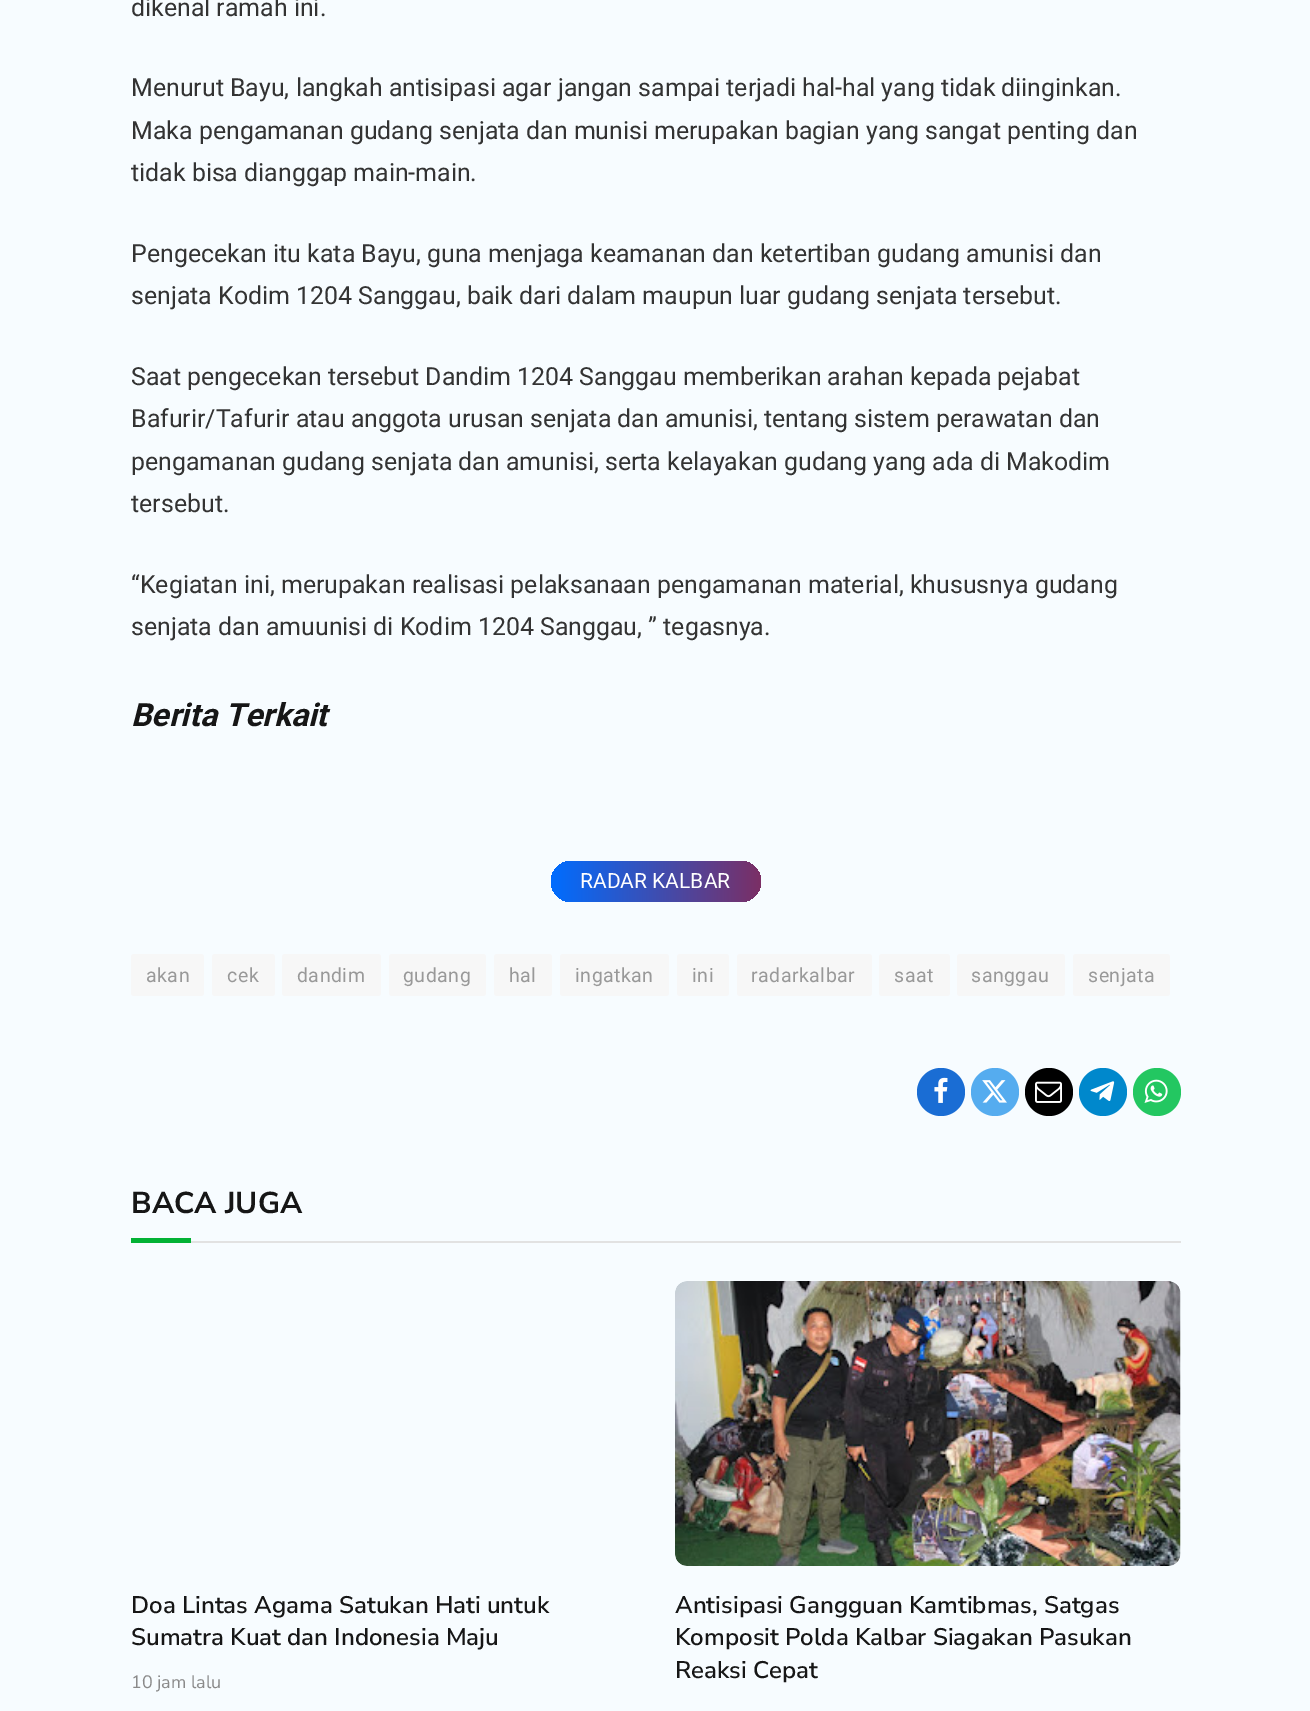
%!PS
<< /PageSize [1310 1711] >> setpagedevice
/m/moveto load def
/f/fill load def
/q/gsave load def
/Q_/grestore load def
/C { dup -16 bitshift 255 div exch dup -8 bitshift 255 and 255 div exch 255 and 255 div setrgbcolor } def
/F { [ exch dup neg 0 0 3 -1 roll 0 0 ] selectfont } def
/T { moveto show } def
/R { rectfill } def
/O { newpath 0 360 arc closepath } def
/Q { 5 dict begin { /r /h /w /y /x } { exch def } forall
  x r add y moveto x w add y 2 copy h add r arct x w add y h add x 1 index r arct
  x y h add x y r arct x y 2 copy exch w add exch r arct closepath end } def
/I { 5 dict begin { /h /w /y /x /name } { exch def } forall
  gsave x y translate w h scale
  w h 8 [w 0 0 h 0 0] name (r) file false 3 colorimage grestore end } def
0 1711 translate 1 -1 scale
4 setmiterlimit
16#F7FCFF C
0 0 1310 1711 R
/Roboto-Regular 24.9 F
16#333333 C
(dikenal ramah ini.) 131 16 T
(Menurut Bayu, langkah antisipasi agar jangan sampai terjadi hal-hal yang tidak diinginkan.) 131 96 T
(Maka pengamanan gudang senjata dan munisi merupakan bagian yang sangat penting dan) 131 139 T
(tidak bisa dianggap main-main.) 131 181 T
(Pengecekan itu kata Bayu, guna menjaga keamanan dan ketertiban gudang amunisi dan) 131 262 T
(senjata Kodim 1204 Sanggau, baik dari dalam maupun luar gudang senjata tersebut.) 131 304 T
(Saat pengecekan tersebut Dandim 1204 Sanggau memberikan arahan kepada pejabat) 131 385 T
(Bafurir/Tafurir atau anggota urusan senjata dan amunisi, tentang sistem perawatan dan) 131 427 T
(pengamanan gudang senjata dan amunisi, serta kelayakan gudang yang ada di Makodim) 131 470 T
(tersebut.) 131 512 T
(“Kegiatan ini, merupakan realisasi pelaksanaan pengamanan material, khususnya gudang) 131 593 T
(senjata dan amuunisi di Kodim 1204 Sanggau, ” tegasnya.) 131 635 T
/Roboto-BoldItalic 32 F
16#161616 C
(Berita Terkait) 131 726 T
q 551 861 210 41 20.5 Q clip newpath
<< /ShadingType 2 /ColorSpace /DeviceRGB /Coords [551 881 761 881] /Extend [true true] /Function << /FunctionType 2 /Domain [0 1] /C0 [0 .427 1] /C1 [.482 .184 .396] /N 1 >> >> shfill Q_
/Roboto-Regular 21 F
16#FFFFFF C
(RADAR KALBAR) 580 888 T
16#F7F7F7 C
131 954 73 42 3 Q f
/Roboto-Regular 19.5 F
16#999999 C
146 982 m .5 0 (akan) ashow
16#F7F7F7 C
212 954 63 42 3 Q f
16#999999 C
227 982 m .5 0 (cek) ashow
16#F7F7F7 C
282 954 99 42 3 Q f
16#999999 C
297 982 m .5 0 (dandim) ashow
16#F7F7F7 C
389 954 97 42 3 Q f
16#999999 C
403 982 m .5 0 (gudang) ashow
16#F7F7F7 C
494 954 58 42 3 Q f
16#999999 C
509 982 m .5 0 (hal) ashow
16#F7F7F7 C
560 954 109 42 3 Q f
16#999999 C
575 982 m .5 0 (ingatkan) ashow
16#F7F7F7 C
677 954 52 42 3 Q f
16#999999 C
692 982 m .5 0 (ini) ashow
16#F7F7F7 C
737 954 135 42 3 Q f
16#999999 C
751 982 m .5 0 (radarkalbar) ashow
16#F7F7F7 C
879 954 71 42 3 Q f
16#999999 C
894 982 m .5 0 (saat) ashow
16#F7F7F7 C
957 954 108 42 3 Q f
16#999999 C
971 982 m .5 0 (sanggau) ashow
16#F7F7F7 C
1073 954 97 42 3 Q f
16#999999 C
1088 982 m .5 0 (senjata) ashow
16#1A6DD4 C
941 1092 24 O f
(1.rgb) 934 1077 14 26 I
16#55ACEF C
995 1092 24 O f
(2.rgb) 982 1080 25 23 I
16#000000 C
1049 1092 24 O f
(3.rgb) 1035 1081 27 22 I
16#0088CC C
1103 1092 24 O f
(4.rgb) 1090 1081 25 20 I
16#23C761 C
1157 1092 24 O f
(5.rgb) 1144 1079 24 24 I
16#E2E2E2 C
191 1241 990 2 R
/NunitoSans-Bold 30 F
16#161616 C
(BACA JUGA) 131 1213 T
16#03B235 C
131 1238 60 5 R
/NunitoSans-SemiBold 24 F
16#161616 C
(Doa Lintas Agama Satukan Hati untuk) 131 1613 T
(Sumatra Kuat dan Indonesia Maju) 131 1645 T
/NunitoSans-Regular 18 F
16#8A8A8A C
(10 jam lalu) 131 1688 T
(6.rgb) 675 1281 506 285 I
/NunitoSans-SemiBold 24 F
16#161616 C
(Antisipasi Gangguan Kamtibmas, Satgas) 675 1613 T
(Komposit Polda Kalbar Siagakan Pasukan) 675 1645 T
(Reaksi Cepat) 675 1678 T
showpage
